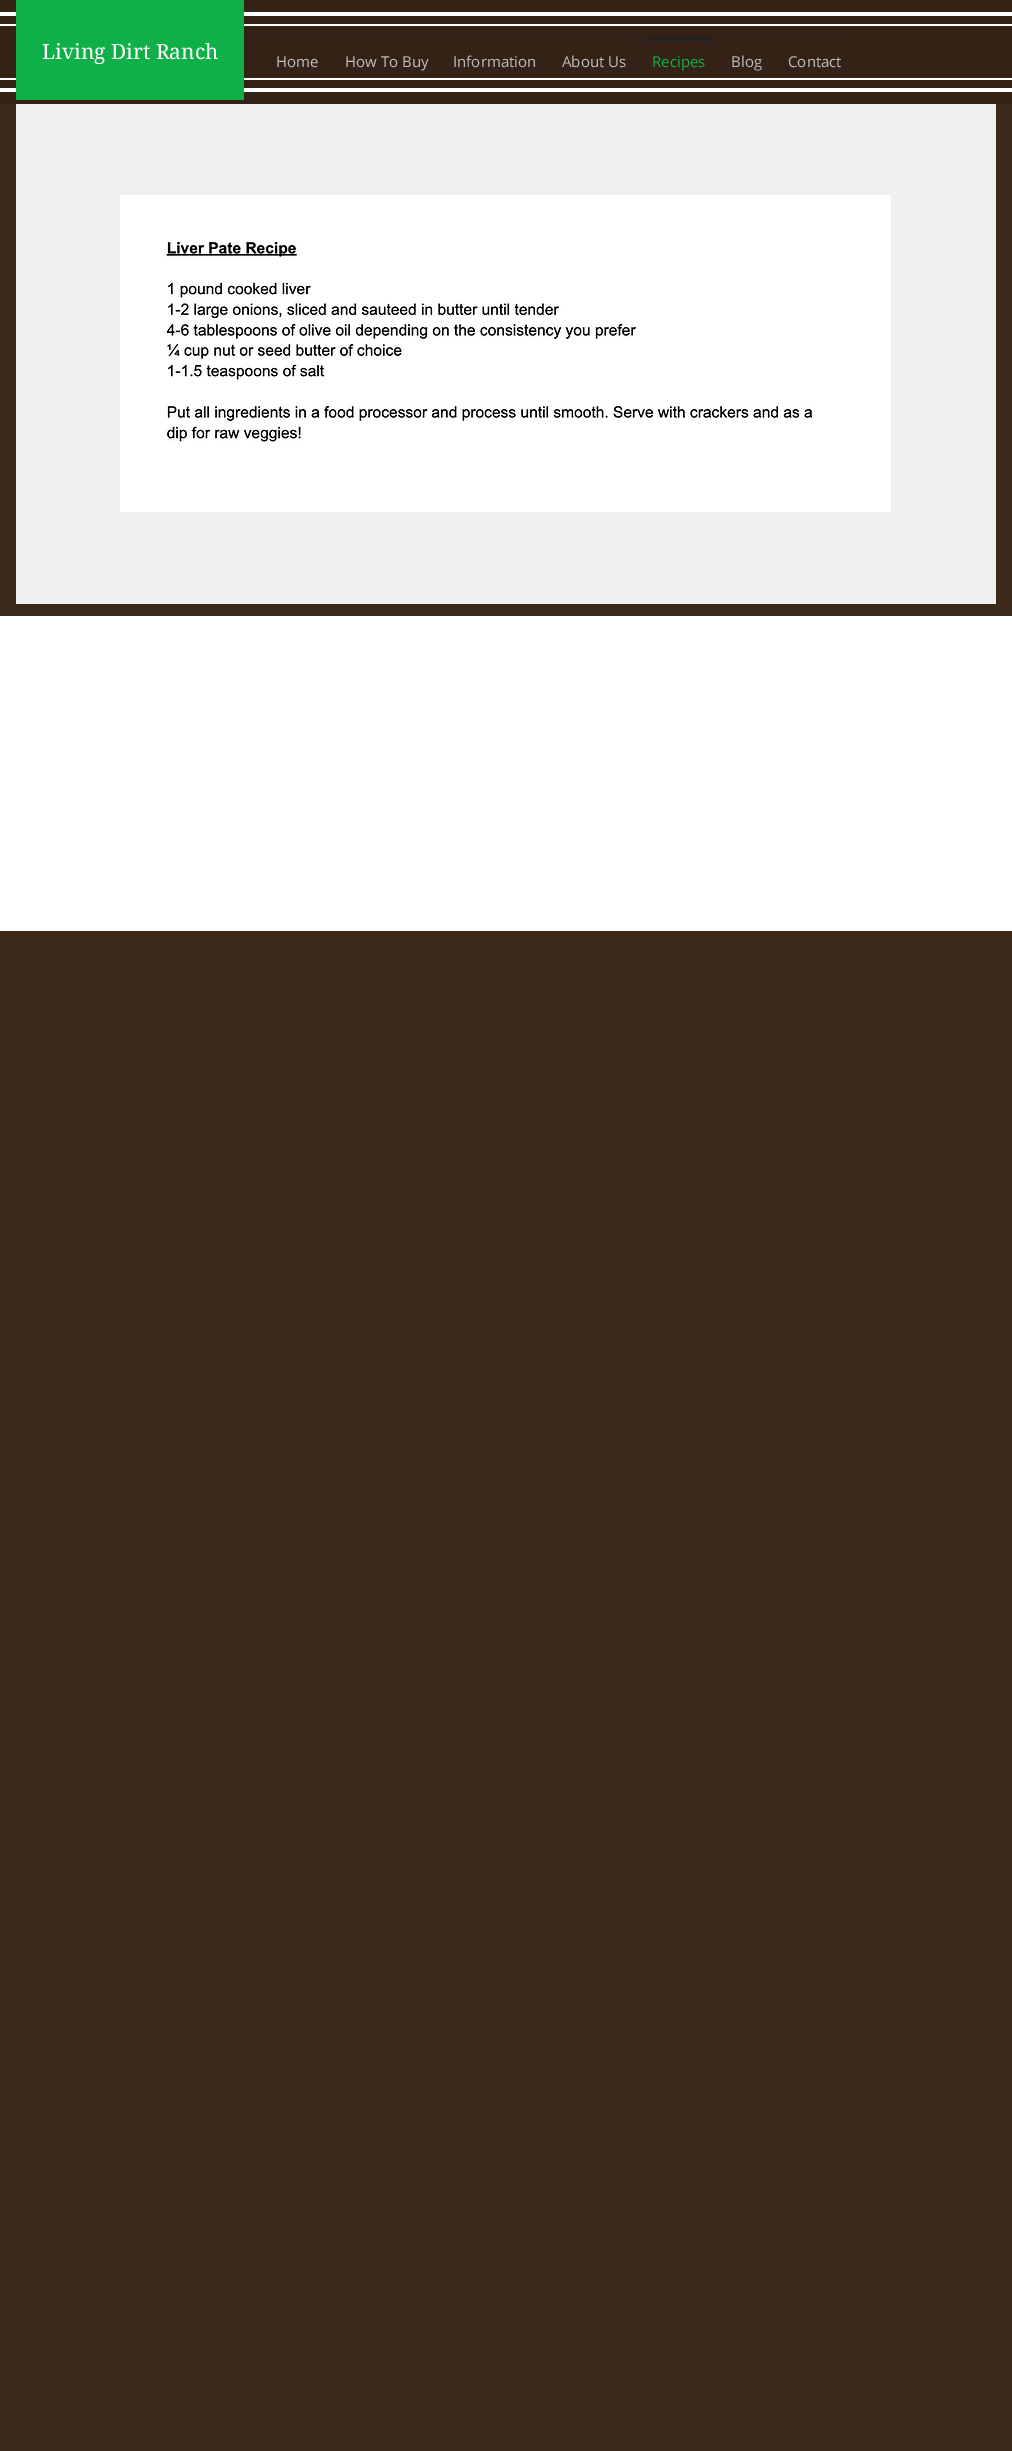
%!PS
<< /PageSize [1012 2451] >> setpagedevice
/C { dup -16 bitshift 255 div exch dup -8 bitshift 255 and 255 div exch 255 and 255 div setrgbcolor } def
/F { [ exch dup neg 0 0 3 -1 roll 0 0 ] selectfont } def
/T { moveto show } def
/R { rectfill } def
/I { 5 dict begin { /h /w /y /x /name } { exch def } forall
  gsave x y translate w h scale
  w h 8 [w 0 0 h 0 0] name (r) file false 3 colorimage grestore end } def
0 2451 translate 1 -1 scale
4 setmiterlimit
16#3B2A19 C
0 0 1012 2451 R
16#342216 C
0 0 1012 104 R
16#FFFFFF C
0 12 1012 4 R
0 88 1012 4 R
0 24 1012 2 R
0 78 1012 2 R
16#0EB047 C
16 0 228 100 R
/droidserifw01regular-Regular 21 F
16#FFFFFF C
(Living Dirt Ranch) 42 59 T
16#222222 C
268 37 59 1 R
/OpenSans-Regular 15 F
16#BEBEBE C
(Home) 276 67 T
16#222222 C
337 37 98 1 R
16#BEBEBE C
(How To Buy) 345 67 T
16#222222 C
445 37 99 1 R
16#BEBEBE C
(Information) 453 67 T
16#222222 C
554 37 80 1 R
16#BEBEBE C
(About Us) 562 67 T
16#222222 C
644 37 69 4 R
16#0EB047 C
(Recipes) 652 67 T
16#222222 C
723 37 47 1 R
16#BEBEBE C
(Blog) 731 67 T
16#222222 C
780 37 70 1 R
16#BEBEBE C
(Contact) 788 67 T
16#F0F0F0 C
16 104 980 500 R
(1.rgb) 120 195 771 317 I
16#FFFFFF C
0 616 1012 315 R
showpage
